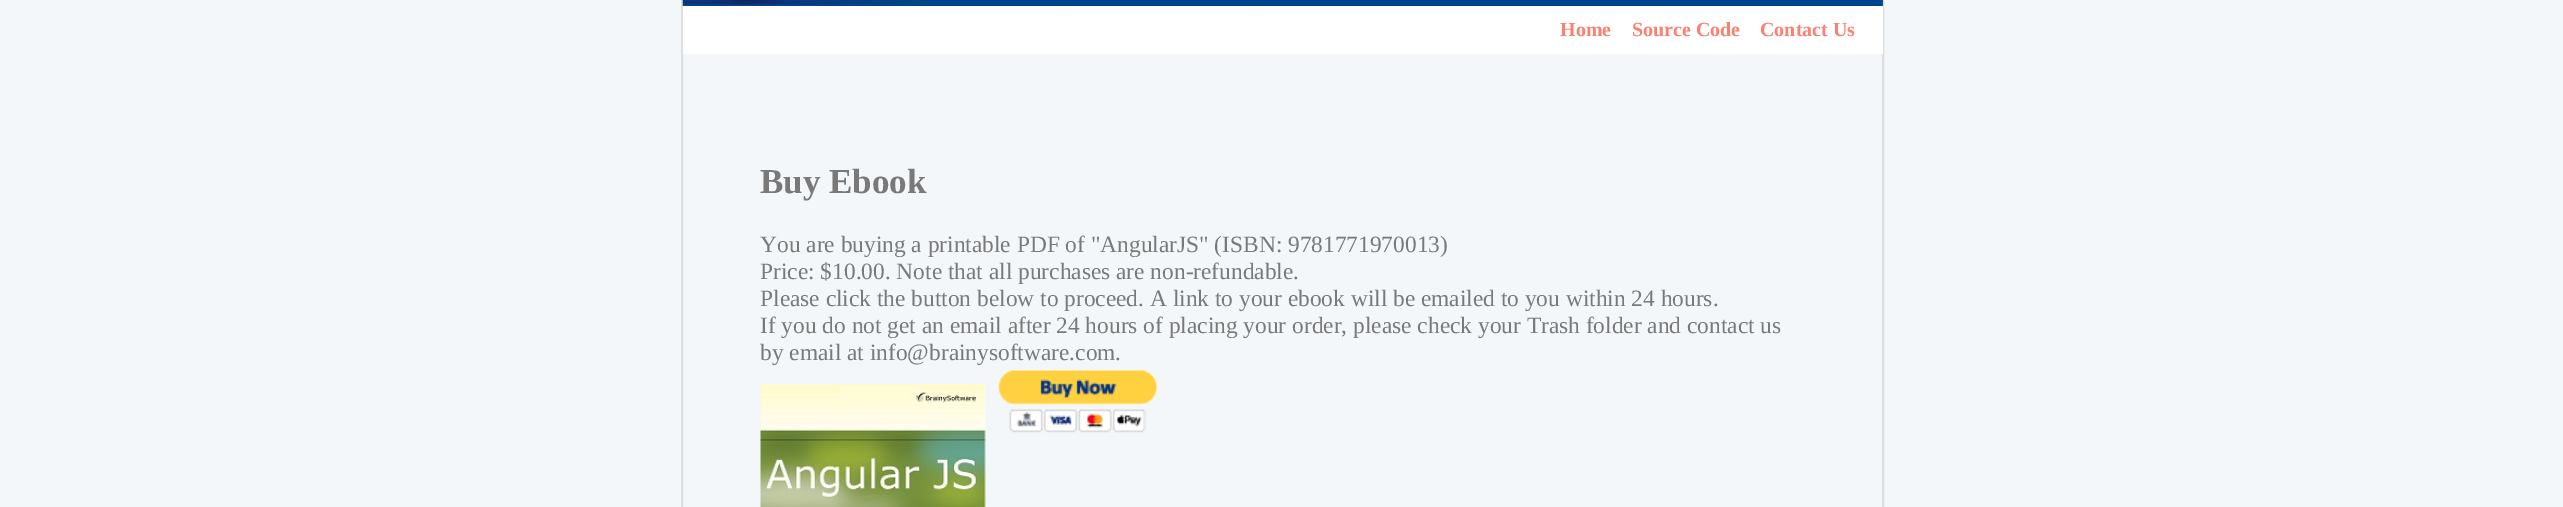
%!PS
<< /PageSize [2563 507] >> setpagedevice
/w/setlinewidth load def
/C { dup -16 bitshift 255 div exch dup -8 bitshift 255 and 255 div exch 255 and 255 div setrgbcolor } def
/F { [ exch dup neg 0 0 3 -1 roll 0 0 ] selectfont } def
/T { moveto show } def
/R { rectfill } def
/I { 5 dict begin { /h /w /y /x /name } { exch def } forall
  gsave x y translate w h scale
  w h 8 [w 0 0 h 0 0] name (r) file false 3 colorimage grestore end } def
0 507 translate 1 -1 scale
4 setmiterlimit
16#F3F7F9 C
0 0 2563 507 R
16#DEDEDE C
2 w
682 -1 1201 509 rectstroke
16#1457B3 C
1882 0 1 6 R
(1.rgb) 682 0 1201 6 I
16#FFFFFF C
683 6 1200 48 R
/LiberationSerif-Bold 20 F
16#FA8072 C
(Home) 1560 36 T
(Source Code) 1632 36 T
(Contact Us) 1760 36 T
/LiberationSerif-Bold 35 F
16#797979 C
(Buy Ebook) 760 193 T
/LiberationSerif-Regular 23.4 F
(You are buying a printable PDF of "AngularJS" \(ISBN: 9781771970013\)) 760 252 T
(Price: $10.00. Note that all purchases are non-refundable.) 760 279 T
(Please click the button below to proceed. A link to your ebook will be emailed to you within 24 hours.) 760 306 T
(If you do not get an email after 24 hours of placing your order, please check your Trash folder and) 760 333 T
(contact us) 1687 333 T
(by email at info@brainysoftware.com.) 760 360 T
(2.rgb) 760 384 226 123 I
(3.rgb) 998 370 159 63 I
showpage
